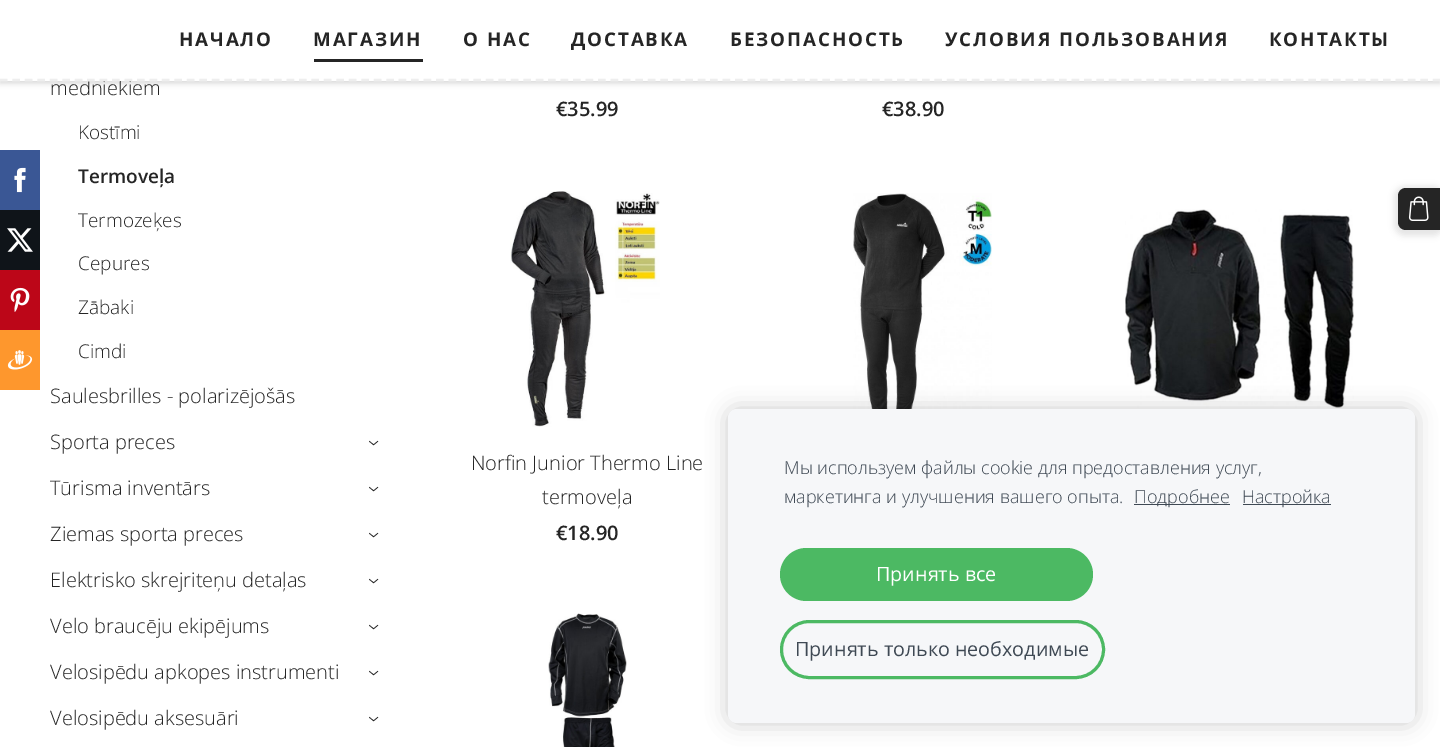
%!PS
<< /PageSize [1440 747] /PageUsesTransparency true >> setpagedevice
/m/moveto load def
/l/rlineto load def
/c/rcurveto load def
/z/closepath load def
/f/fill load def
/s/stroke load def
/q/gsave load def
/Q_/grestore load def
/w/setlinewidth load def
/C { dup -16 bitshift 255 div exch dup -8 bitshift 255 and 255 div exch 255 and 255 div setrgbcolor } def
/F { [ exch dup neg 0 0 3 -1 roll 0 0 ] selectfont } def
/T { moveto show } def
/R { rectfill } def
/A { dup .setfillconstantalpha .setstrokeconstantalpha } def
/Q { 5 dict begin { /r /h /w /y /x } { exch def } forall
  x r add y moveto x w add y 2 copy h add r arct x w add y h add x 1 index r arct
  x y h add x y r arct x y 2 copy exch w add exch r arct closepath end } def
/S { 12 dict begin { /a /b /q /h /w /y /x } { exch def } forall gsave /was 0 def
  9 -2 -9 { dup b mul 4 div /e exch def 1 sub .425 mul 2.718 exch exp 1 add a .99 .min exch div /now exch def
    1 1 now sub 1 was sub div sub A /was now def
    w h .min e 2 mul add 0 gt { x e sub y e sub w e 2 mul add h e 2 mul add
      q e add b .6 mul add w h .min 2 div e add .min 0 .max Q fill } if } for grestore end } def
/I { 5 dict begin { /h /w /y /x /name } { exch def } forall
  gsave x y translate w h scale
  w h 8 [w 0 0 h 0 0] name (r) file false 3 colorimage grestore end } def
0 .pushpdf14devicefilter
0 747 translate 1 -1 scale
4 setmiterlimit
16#FFFFFF C
0 0 1440 747 R
16#3A5795 C
0 150 40 60 R
(1.rgb) 14 167 12 26 I
16#0F1419 C
0 210 40 60 R
(2.rgb) 7 228 26 24 I
16#BC0618 C
0 270 40 60 R
(3.rgb) 10 287 20 25 I
16#FE972D C
0 330 40 60 R
(4.rgb) 7 350 26 20 I
16#000000 C
0 1 1440 82 0 3 .17 S
/OpenSans-Light 20 F
16#252525 C
(medniekiem) 50 95 T
16#FFFFFF C
0 0 1440 81 R
16#EEEEEE C
2.5 w
[7.5 4.96] 0 setdash
0 80 m 1440 0 l s
/OpenSans-Bold 18.75 F
16#252525 C
179 46 m 1.9 0 (НАЧАЛО) ashow
314 59 109 3 R
313 46 m 1.9 0 (МАГАЗИН) ashow
463 46 m 1.9 0 (О НАС) ashow
571 46 m 1.9 0 (ДОСТАВКА) ashow
730 46 m 1.9 0 (БЕЗОПАСНОСТЬ) ashow
945 46 m 1.9 0 (УСЛОВИЯ ПОЛЬЗОВАНИЯ) ashow
1269 46 m 1.9 0 (КОНТАКТЫ) ashow
/OpenSans-Light 19 F
(Kostīmi) 78 139 T
/OpenSans-SemiBold 19 F
(Termoveļa) 78 183 T
/OpenSans-Light 19 F
(Termozeķes) 78 227 T
(Cepures) 78 270 T
(Zābaki) 78 314 T
(Cimdi) 78 358 T
/OpenSans-Light 20 F
(Saulesbrilles - polarizējošās) 50 403 T
(Sporta preces) 50 449 T
/OpenSans-Light 24 F
q 367 440 translate 90 rotate 0 0 m (›) show Q_
/OpenSans-Light 20 F
(Tūrisma inventārs) 50 495 T
/OpenSans-Light 24 F
q 367 486 translate 90 rotate 0 0 m (›) show Q_
/OpenSans-Light 20 F
(Ziemas sporta preces) 50 541 T
/OpenSans-Light 24 F
q 367 532 translate 90 rotate 0 0 m (›) show Q_
/OpenSans-Light 20 F
(Elektrisko skrejriteņu detaļas) 50 587 T
/OpenSans-Light 24 F
q 367 578 translate 90 rotate 0 0 m (›) show Q_
/OpenSans-Light 20 F
(Velo braucēju ekipējums) 50 633 T
/OpenSans-Light 24 F
q 367 624 translate 90 rotate 0 0 m (›) show Q_
/OpenSans-Light 20 F
(Velosipēdu apkopes instrumenti) 50 679 T
/OpenSans-Light 24 F
q 367 670 translate 90 rotate 0 0 m (›) show Q_
/OpenSans-Light 20 F
(Velosipēdu aksesuāri) 50 725 T
/OpenSans-Light 24 F
q 367 716 translate 90 rotate 0 0 m (›) show Q_
/OpenSans-SemiBold 20 F
(€35.99) 556 116 T
(€38.90) 882 116 T
(5.rgb) 853 193 139 216 I
(6.rgb) 1125 209 229 199 I
(7.rgb) 510 191 150 236 I
/OpenSans-Light 20 F
(Norfin Junior Thermo Line) 471 470 T
(termoveļa) 542 504 T
/OpenSans-SemiBold 20 F
(€18.90) 556 540 T
(8.rgb) 548 613 79 134 I
16#000000 C
1394 186 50 50 11 3 .1 S
16#252525 C
1406 188 m 34 0 l 0 42 l -34 0 l -4.5 0 -8 -3.5 -8 -8 c 0 -26 l 0 -4.5 3.5 -8 8 -8 c z f
(9.rgb) 1408 196 21 25 I
16#000000 C
728 409 687 314 9 10.5 .2 S
16#F6F7F9 C
728 409 687 314 9 Q f
/OpenSans-Light 18 F
16#3F4954 C
(Мы используем файлы cookie для предоставления услуг,) 784 474 T
(маркетинга и улучшения вашего опыта.) 784 503 T
1134 504 96 1 R
(Подробнее) 1134 503 T
1243 504 88 1 R
(Настройка) 1242 503 T
16#4CB963 C
780 548 313 53 26.5 Q f
/OpenSans-Regular 19.75 F
16#FFFFFF C
(Принять все) 876 581 T
16#4CB963 C
3 w
[] 0 setdash
781.5 621.5 322 56 28 Q s
16#3F4954 C
(Принять только необходимые) 795 656 T
.poppdf14devicefilter showpage
